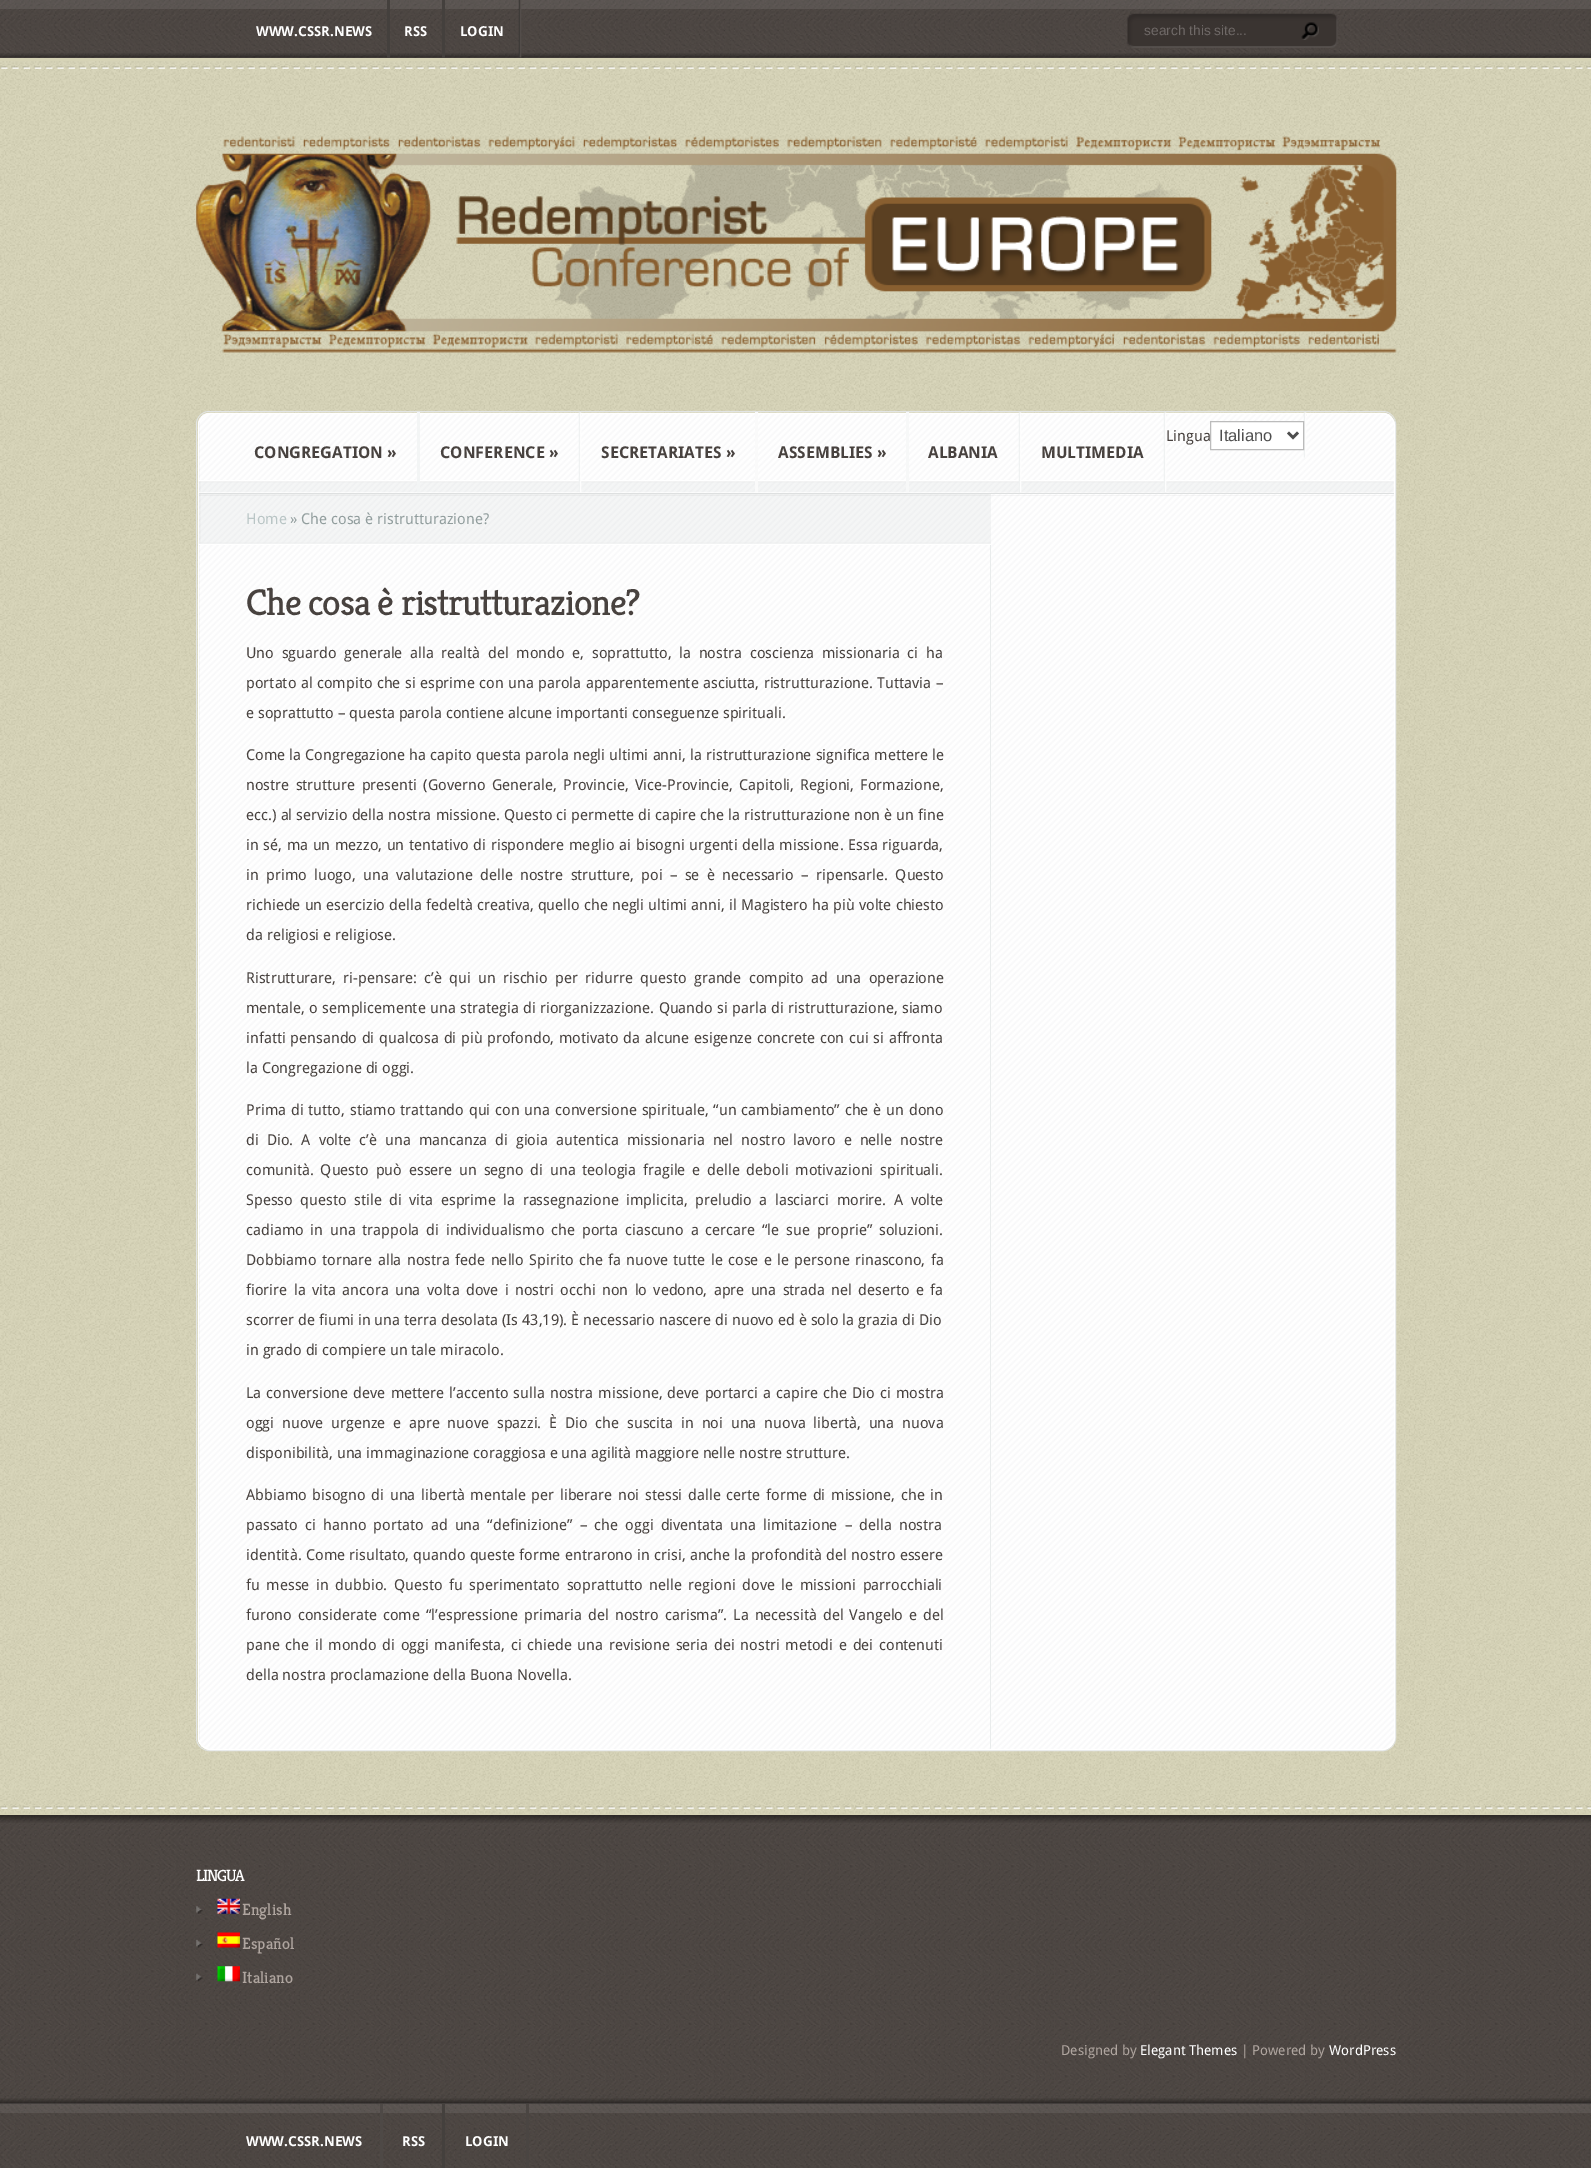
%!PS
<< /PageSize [1591 2168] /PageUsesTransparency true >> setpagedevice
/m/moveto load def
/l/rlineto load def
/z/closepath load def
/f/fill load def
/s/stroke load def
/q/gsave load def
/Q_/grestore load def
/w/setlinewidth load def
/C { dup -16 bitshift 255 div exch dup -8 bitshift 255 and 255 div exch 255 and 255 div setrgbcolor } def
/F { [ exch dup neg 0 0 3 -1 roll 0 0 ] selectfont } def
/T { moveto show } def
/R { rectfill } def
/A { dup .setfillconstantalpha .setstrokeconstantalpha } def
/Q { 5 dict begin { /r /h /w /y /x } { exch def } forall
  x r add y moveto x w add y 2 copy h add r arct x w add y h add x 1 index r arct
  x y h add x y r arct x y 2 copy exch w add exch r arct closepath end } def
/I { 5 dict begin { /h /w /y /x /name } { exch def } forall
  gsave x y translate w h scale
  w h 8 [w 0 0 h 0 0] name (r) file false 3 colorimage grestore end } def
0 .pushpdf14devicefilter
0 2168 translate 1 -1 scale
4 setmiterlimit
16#FFFFFF C
0 0 1591 2168 R
(1.rgb) 0 0 1591 58 I
0.08 A
0 0 1591 9 R
1 A
(5.rgb) 0 53 1591 5 I
16#44403D C
387 0 3 58 R
/DroidSans-Bold 13.75 F
16#FFFFFF C
(WWW.CSSR.NEWS) 256 36 T
16#44403D C
442 0 3 58 R
16#FFFFFF C
(RSS) 404 36 T
(2.rgb) 518 0 4 58 I
(LOGIN) 460 36 T
(3.rgb) 1127 13 211 35 I
/LiberationSans-Regular 13.75 F
16#6F6967 C
(search this site...) 1144 35 T
(4.rgb) 1301 22 18 18 I
16#D6D3B6 C
0 58 1591 1757 R
(6.rgb) 0 61 1591 1753 I
(7.rgb) 0 66 1591 3 I
(8.rgb) 196 136 1201 217 I
16#E2E5E5 C
196.5 411.5 1199 1339 12.5 Q s
(9.rgb) 197 412 1198 1338 I
16#FFFFFF C
198.5 413.5 1196 1336 12.5 Q s
(10.rgb) 199 422 1 1318 I
(11.rgb) 198 480 1196 13 I
(12.rgb) 1303 412 4 46 I
/DroidSans-Regular 15 F
16#48423F C
(Lingua) 1166 441 T
16#FFFFFF C
1210.5 421.5 m 93 0 l 0 28 l -93 0 l z q f Q_
16#BBBBBB C
s
16#4E4E4E C
2.5 w
1288 432.5 m 5 5 l 5 -5 l s
/LiberationSans-Regular 16.5 F
(Italiano) 1219 441 T
16#F3F5F5 C
417 412 3 81 R
/DroidSans-Bold 16.25 F
16#48423F C
(CONGREGATION ») 254 458 T
(13.rgb) 578 412 4 81 I
(CONFERENCE ») 440 458 T
16#FAFAFA C
755 412 3 81 R
16#48423F C
(SECRETARIATES ») 601 458 T
16#F7F8F8 C
906 412 3 80 R
16#48423F C
(ASSEMBLIES ») 778 458 T
(14.rgb) 1018 412 4 81 I
(ALBANIA) 928 458 T
(15.rgb) 1163 412 4 80 I
(MULTIMEDIA) 1041 458 T
(17.rgb) 198 492 793 53 I
(16.rgb) 199 495 1195 1 I
16#DEE0E0 C
199 493 1195 1 R
/DroidSans-Regular 15 F
16#B9C5C5 C
(Home) 246 524 T
16#929E9E C
(» Che cosa è ristrutturazione?) 290 524 T
(18.rgb) 990 545 1 1204 I
/Kreon-Regular 37.5 F
16#48423F C
246 615 m -1.25 0 (Che cosa è ristrutturazione?) ashow
/DroidSans-Regular 15 F
246 658 m 3.75 0 32 (Uno sguardo generale alla realtà del mondo e, soprattutto, la nostra coscienza missionaria ci ha) widthshow
246 688 m .5 0 32 (portato al compito che si esprime con una parola apparentemente asciutta, ristrutturazione. Tuttavia –) widthshow
(e soprattutto – questa parola contiene alcune importanti conseguenze spirituali.) 246 718 T
246 760 m .25 0 32 (Come la Congregazione ha capito questa parola negli ultimi anni, la ristrutturazione significa mettere le) widthshow
246 790 m 2.4 0 32 (nostre strutture presenti \(Governo Generale, Provincie, Vice-Provincie, Capitoli, Regioni, Formazione,) widthshow
246 820 m .2 0 32 (ecc.\) al servizio della nostra missione. Questo ci permette di capire che la ristrutturazione non è un fine) widthshow
246 850 m .75 0 32 (in sé, ma un mezzo, un tentativo di rispondere meglio ai bisogni urgenti della missione. Essa riguarda,) widthshow
246 880 m 3.4 0 32 (in primo luogo, una valutazione delle nostre strutture, poi – se è necessario – ripensarle. Questo) widthshow
246 910 m .25 0 32 (richiede un esercizio della fedeltà creativa, quello che negli ultimi anni, il Magistero ha più volte chiesto) widthshow
(da religiosi e religiose.) 246 940 T
246 983 m 3.5 0 32 (Ristrutturare, ri-pensare: c’è qui un rischio per ridurre questo grande compito ad una operazione) widthshow
246 1013 m .5 0 32 (mentale, o semplicemente una strategia di riorganizzazione. Quando si parla di ristrutturazione, siamo) widthshow
246 1043 m .8 0 32 (infatti pensando di qualcosa di più profondo, motivato da alcune esigenze concrete con cui si affronta) widthshow
(la Congregazione di oggi.) 246 1073 T
246 1115 m 1 0 32 (Prima di tutto, stiamo trattando qui con una conversione spirituale, “un cambiamento” che è un dono) widthshow
246 1145 m 4.1 0 32 (di Dio. A volte c’è una mancanza di gioia autentica missionaria nel nostro lavoro e nelle nostre) widthshow
246 1175 m 2.9 0 32 (comunità. Questo può essere un segno di una teologia fragile e delle deboli motivazioni spirituali.) widthshow
246 1205 m 3.6 0 32 (Spesso questo stile di vita esprime la rassegnazione implicita, preludio a lasciarci morire. A volte) widthshow
246 1235 m 2.9 0 32 (cadiamo in una trappola di individualismo che porta ciascuno a cercare “le sue proprie” soluzioni.) widthshow
246 1265 m 1.5 0 32 (Dobbiamo tornare alla nostra fede nello Spirito che fa nuove tutte le cose e le persone rinascono, fa) widthshow
246 1295 m 2.4 0 32 (fiorire la vita ancora una volta dove i nostri occhi non lo vedono, apre una strada nel deserto e fa) widthshow
(scorrer de fiumi in una terra desolata \(Is 43,19\). È necessario nascere di nuovo ed è solo la grazia di Dio) 246 1325 T
(in grado di compiere un tale miracolo.) 246 1355 T
246 1398 m 1.25 0 32 (La conversione deve mettere l’accento sulla nostra missione, deve portarci a capire che Dio ci mostra) widthshow
246 1428 m 3.9 0 32 (oggi nuove urgenze e apre nuove spazzi. È Dio che suscita in noi una nuova libertà, una nuova) widthshow
(disponibilità, una immaginazione coraggiosa e una agilità maggiore nelle nostre strutture.) 246 1458 T
246 1500 m 1.8 0 32 (Abbiamo bisogno di una libertà mentale per liberare noi stessi dalle certe forme di missione, che in) widthshow
246 1530 m 3.25 0 32 (passato ci hanno portato ad una “definizione” – che oggi diventata una limitazione – della nostra) widthshow
246 1560 m .4 0 32 (identità. Come risultato, quando queste forme entrarono in crisi, anche la profondità del nostro essere) widthshow
246 1590 m 2.75 0 32 (fu messe in dubbio. Questo fu sperimentato soprattutto nelle regioni dove le missioni parrocchiali) widthshow
246 1620 m 2.1 0 32 (furono considerate come “l’espressione primaria del nostro carisma”. La necessità del Vangelo e del) widthshow
246 1650 m 1.8 0 32 (pane che il mondo di oggi manifesta, ci chiede una revisione seria dei nostri metodi e dei contenuti) widthshow
(della nostra proclamazione della Buona Novella.) 246 1680 T
(19.rgb) 0 1806 1591 3 I
(20.rgb) 0 1815 1591 353 I
(21.rgb) 0 1815 1591 8 I
/Kreon-Regular 16.25 F
16#FFFFFF C
196 1881 m -1.25 0 (LINGUA) ashow
(22.rgb) 196 1906 7 8 I
(23.rgb) 217 1898 23 16 I
16#AFA59F C
(English) 242 1915 T
(24.rgb) 196 1940 7 8 I
(25.rgb) 217 1932 23 16 I
(Español) 242 1949 T
(26.rgb) 196 1973 7 9 I
(27.rgb) 217 1966 23 16 I
(Italiano) 242 1983 T
/DroidSans-Regular 13.75 F
(Designed by) 1061 2055 T
16#FFFFFF C
(Elegant Themes) 1140 2055 T
16#AFA59F C
(| Powered by) 1241 2055 T
16#FFFFFF C
(WordPress) 1329 2055 T
(28.rgb) 0 2098 1591 6 I
0.08 A
0 2103 1591 10 R
1 A
16#4E4946 C
380 2104 3 64 R
/DroidSans-Bold 13.75 F
16#FFFFFF C
(WWW.CSSR.NEWS) 246 2146 T
16#44403D C
442 2103 3 65 R
16#FFFFFF C
(RSS) 402 2146 T
16#4A4542 C
526 2104 3 64 R
16#FFFFFF C
(LOGIN) 465 2146 T
.poppdf14devicefilter showpage
